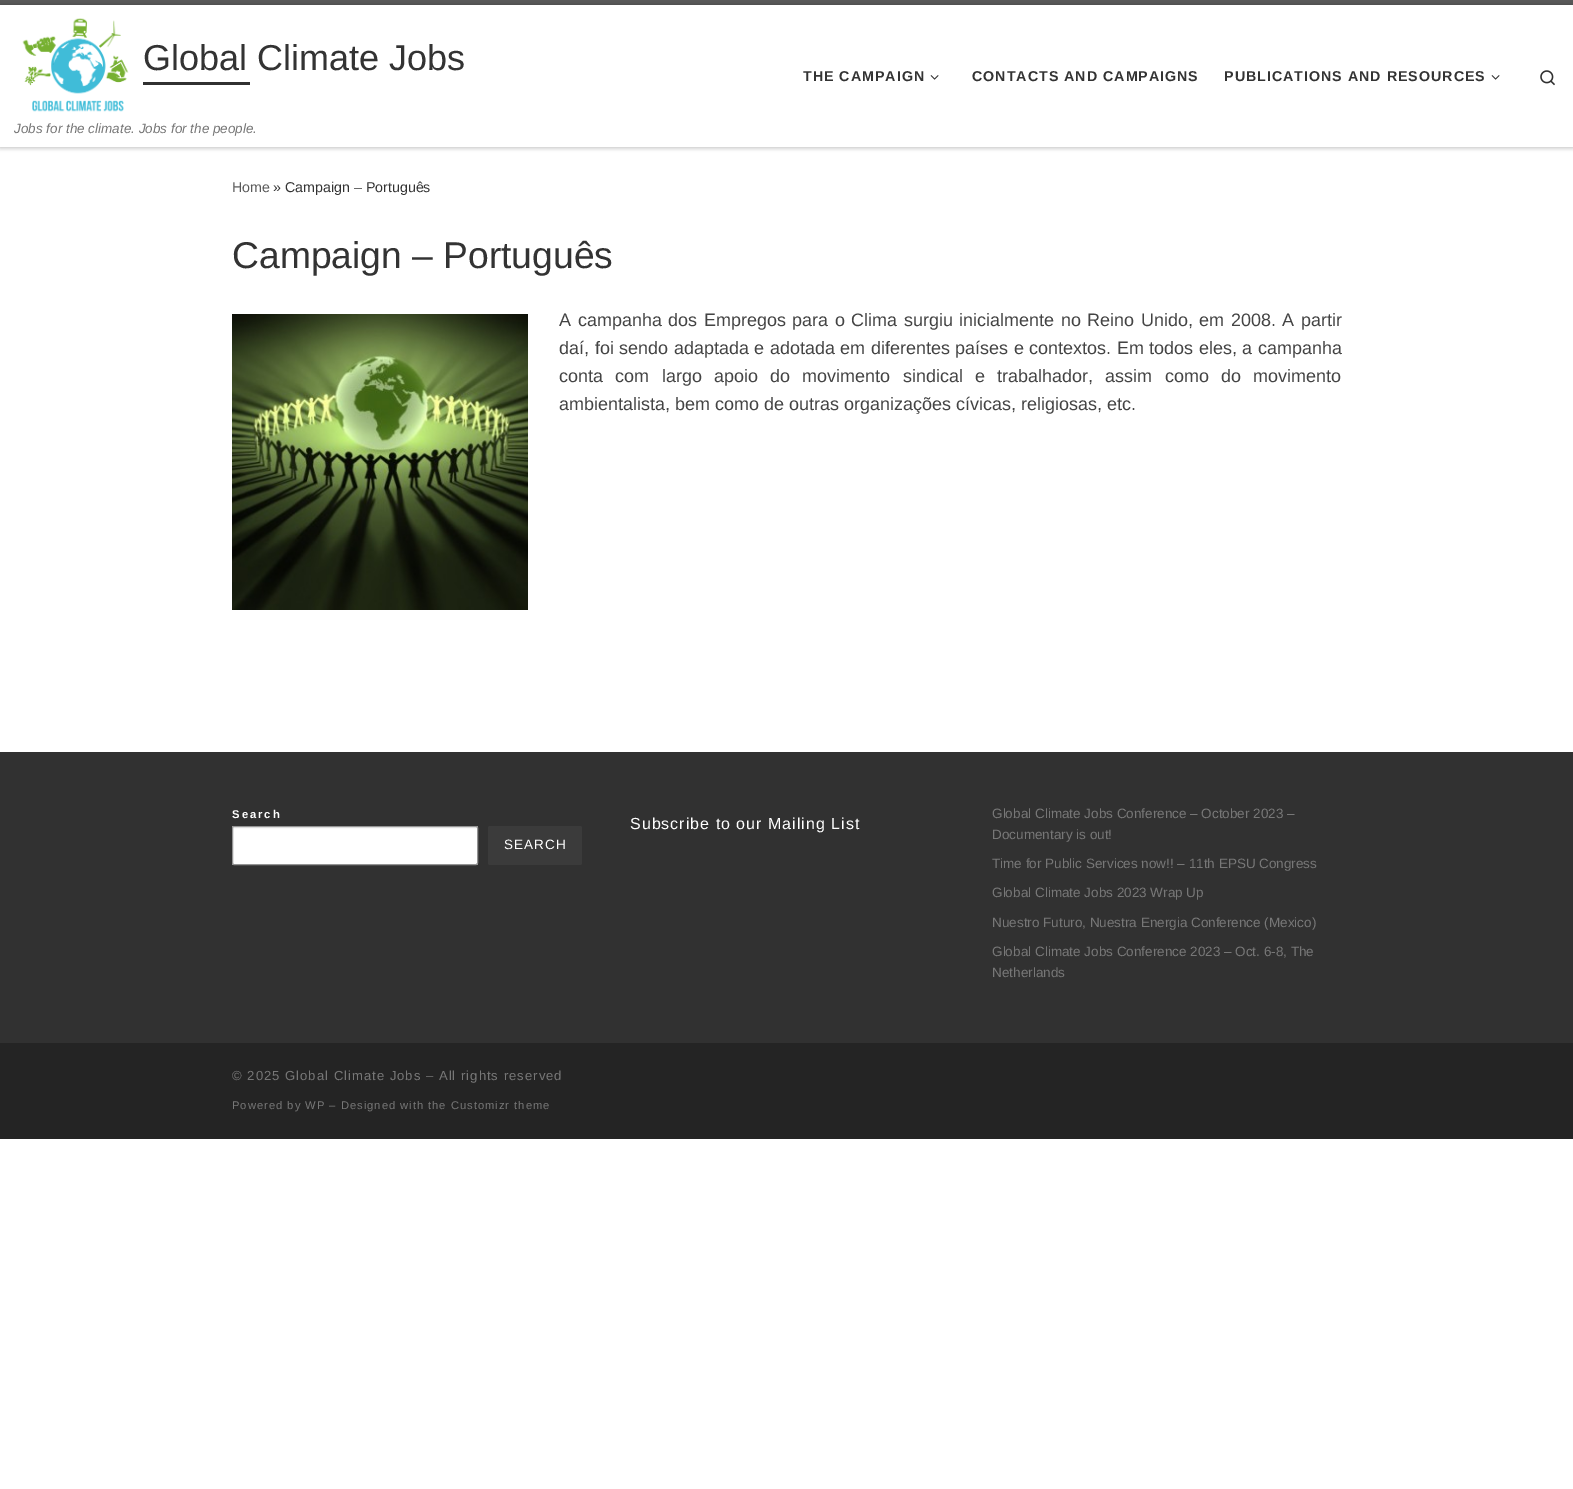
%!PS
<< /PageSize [1573 1489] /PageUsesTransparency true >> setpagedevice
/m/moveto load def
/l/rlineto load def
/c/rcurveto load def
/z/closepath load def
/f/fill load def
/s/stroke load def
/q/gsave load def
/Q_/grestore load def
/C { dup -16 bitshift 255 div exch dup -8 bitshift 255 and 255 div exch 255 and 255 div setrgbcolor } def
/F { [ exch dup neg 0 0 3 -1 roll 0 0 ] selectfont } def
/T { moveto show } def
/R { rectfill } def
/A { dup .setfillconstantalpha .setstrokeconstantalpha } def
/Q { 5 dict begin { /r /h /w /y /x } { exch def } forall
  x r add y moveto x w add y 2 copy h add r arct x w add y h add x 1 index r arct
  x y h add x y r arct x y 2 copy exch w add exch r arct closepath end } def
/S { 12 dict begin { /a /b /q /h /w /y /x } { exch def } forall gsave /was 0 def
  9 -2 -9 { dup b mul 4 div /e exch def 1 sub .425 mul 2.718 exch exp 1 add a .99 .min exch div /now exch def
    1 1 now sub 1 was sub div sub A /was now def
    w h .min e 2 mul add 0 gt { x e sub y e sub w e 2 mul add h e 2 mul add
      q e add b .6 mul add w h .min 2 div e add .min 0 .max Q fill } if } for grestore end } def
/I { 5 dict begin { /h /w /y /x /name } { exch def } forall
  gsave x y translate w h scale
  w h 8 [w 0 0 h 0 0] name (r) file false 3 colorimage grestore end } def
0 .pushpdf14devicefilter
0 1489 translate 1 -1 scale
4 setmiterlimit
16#FFFFFF C
0 0 1573 1489 R
q
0 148 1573 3 rectclip
16#666666 C
0 2 1573 148 0 1 .08 S
Q_
16#5A5A5A C
0 0 1573 5 R
16#EFEFEF C
0 147 1573 1 R
q
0 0 m 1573 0 l 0 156 l -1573 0 l z 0 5 m 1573 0 l 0 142 l -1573 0 l z eoclip newpath
16#000000 C
0 5 1573 142 0 2.5 .2 S
Q_
(1.rgb) 22 18 107 94 I
/LiberationSans-Regular 36 F
16#333333 C
(Global Climate Jobs) 143 70 T
16#313131 C
143 82 107 3 R
/LiberationSans-Italic 13.5 F
16#777777 C
(Jobs for the climate. Jobs for the people.) 14 133 T
/LiberationSans-Bold 14.25 F
16#333333 C
803 81 m 1 0 (THE CAMPAIGN) ashow
(2.rgb) 930 75 9 5 I
972 81 m 1 0 (CONTACTS AND CAMPAIGNS) ashow
1224 81 m 1 0 (PUBLICATIONS AND RESOURCES) ashow
(2.rgb) 1491 75 9 5 I
(3.rgb) 1540 70 15 16 I
/LiberationSans-Regular 14.25 F
16#5A5A5A C
(Home) 232 192 T
16#333333 C
(» Campaign – Português) 273 192 T
/LiberationSans-Regular 37.25 F
(Campaign – Português) 232 268 T
(4.rgb) 232 314 296 296 I
/LiberationSans-Regular 18 F
16#444444 C
559 326 m 1.5 0 32 (A campanha dos Empregos para o Clima surgiu inicialmente no Reino Unido, em 2008. A partir) widthshow
559 354 m .5 0 32 (daí, foi sendo adaptada e adotada em diferentes países e contextos. Em todos eles, a campanha) widthshow
559 382 m 7.25 0 32 (conta com largo apoio do movimento sindical e trabalhador, assim como do movimento) widthshow
(ambientalista, bem como de outras organizações cívicas, religiosas, etc.) 559 410 T
16#313131 C
0 752 1573 291 R
/LiberationSans-Bold 11.25 F
16#FFFFFF C
232 818 m 2 0 (Search) ashow
232 826 246 39 2 Q f
16#F9F9F9 C
234 829 m 243 0 l 0 1 l 0 -3 l -243 0 l -1 0 -1 2 -1 3 c 0 -1 0 -1 1 -1 c z f
16#949494 C
232.5 826.5 245 38 1.5 Q s
16#3B3B3B C
488 826 94 39 2 Q f
/LiberationSans-Regular 13.5 F
16#FFFFFF C
504 849 m 1 0 (SEARCH) ashow
/LiberationSans-Regular 16 F
630 829 m 1 0 (Subscribe to our Mailing List) ashow
/LiberationSans-Regular 13.5 F
16#777777 C
(Global Climate Jobs Conference – October 2023 –) 992 818 T
(Documentary is out!) 992 839 T
(Time for Public Services now!! – 11th EPSU Congress) 992 868 T
(Global Climate Jobs 2023 Wrap Up) 992 897 T
(Nuestro Futuro, Nuestra Energia Conference \(Mexico\)) 992 927 T
(Global Climate Jobs Conference 2023 – Oct. 6-8, The) 992 956 T
(Netherlands) 992 977 T
16#242424 C
0 1043 1573 96 R
/LiberationSans-Regular 13.1 F
16#777777 C
232 1080 m 1 0 (© 2025 Global Climate Jobs – All rights reserved) ashow
/LiberationSans-Regular 11.2 F
232 1109 m 1 0 (Powered by WP – Designed with the Customizr theme) ashow
.poppdf14devicefilter showpage
